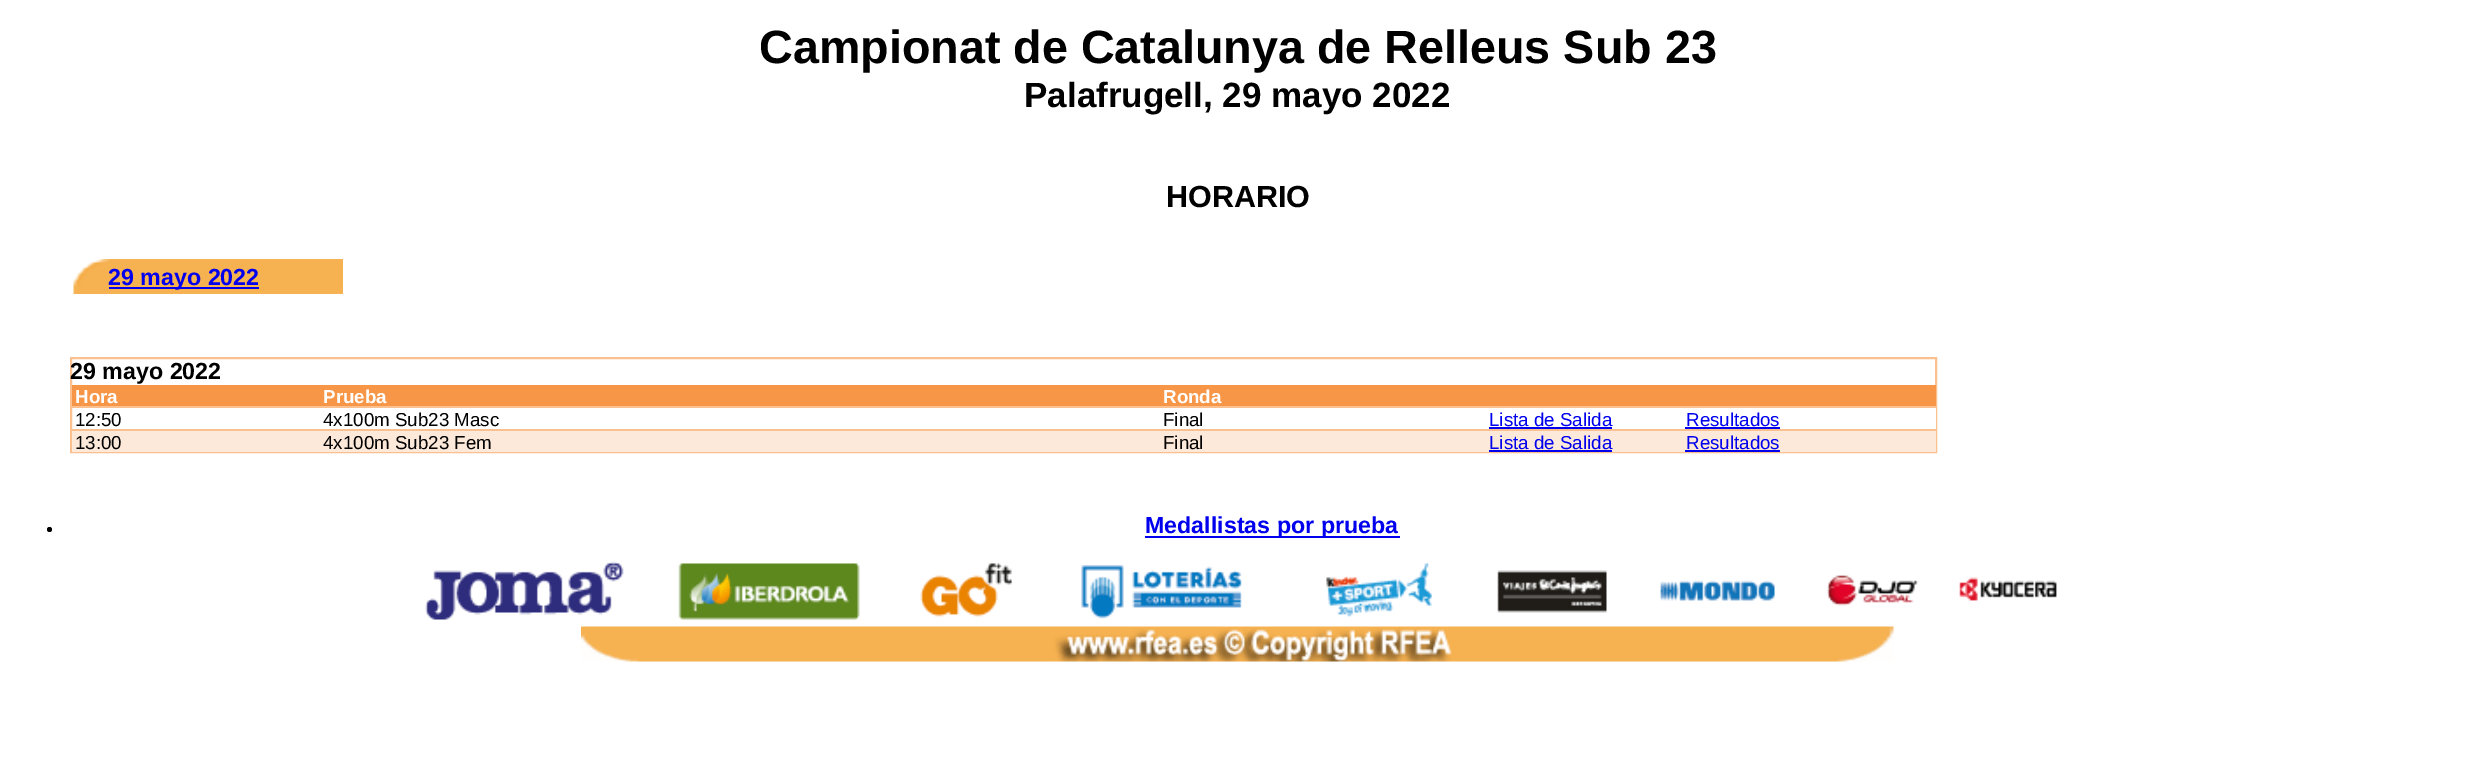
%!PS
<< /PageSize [2473 761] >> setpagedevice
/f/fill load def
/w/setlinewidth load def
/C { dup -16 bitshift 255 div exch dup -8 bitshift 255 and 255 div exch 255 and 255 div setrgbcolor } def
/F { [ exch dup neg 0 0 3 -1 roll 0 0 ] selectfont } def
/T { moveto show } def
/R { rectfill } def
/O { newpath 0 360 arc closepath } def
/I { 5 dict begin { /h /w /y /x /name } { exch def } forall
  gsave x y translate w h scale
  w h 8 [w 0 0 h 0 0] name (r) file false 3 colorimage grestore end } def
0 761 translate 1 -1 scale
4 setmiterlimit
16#FFFFFF C
0 0 2473 761 R
/LiberationSans-Bold 46.7 F
16#000000 C
(Campionat de Catalunya de Relleus Sub 23) 759 63 T
/LiberationSans-Bold 35 F
(Palafrugell, 29 mayo 2022) 1024 107 T
/LiberationSans-Bold 30.5 F
(HORARIO) 1166 207 T
(1.rgb) 73 259 270 35 I
16#0000EE C
109 287 150 2 R
/LiberationSans-Bold 23.25 F
(29 mayo 2022) 108 285 T
16#FAC090 C
2 w
71 358 1865 94 rectstroke
16#000000 C
(29 mayo 2022) 70 379 T
16#F79646 C
72 385 1864 21 R
/LiberationSans-Bold 18.75 F
16#FFFFFF C
(Hora) 75 403 T
(Prueba) 323 403 T
(Ronda) 1163 403 T
16#FAC090 C
72 406 1864 2 R
/LiberationSans-Regular 18.75 F
16#000000 C
(12:50) 75 426 T
(4x100m Sub23 Masc) 323 426 T
(Final) 1163 426 T
16#0000EE C
(Lista de Salida) 1489 426 T
1489 427 123 2 R
(Resultados) 1686 426 T
1685 427 95 2 R
16#FFFFFF C
1935 408 1 21 R
16#FDE9D9 C
72 431 1864 21 R
16#FAC090 C
72 429 1864 2 R
16#000000 C
(13:00) 75 449 T
(4x100m Sub23 Fem) 323 449 T
(Final) 1163 449 T
16#0000EE C
(Lista de Salida) 1489 449 T
1489 450 123 2 R
(Resultados) 1686 449 T
1685 450 95 2 R
16#000000 C
49.5 529.5 2.5 O f
16#0000EE C
1145 536 255 2 R
/LiberationSans-Bold 23.25 F
(Medallistas por prueba) 1145 533 T
(2.rgb) 425 561 1632 59 I
(3.rgb) 581 626 1313 36 I
showpage
